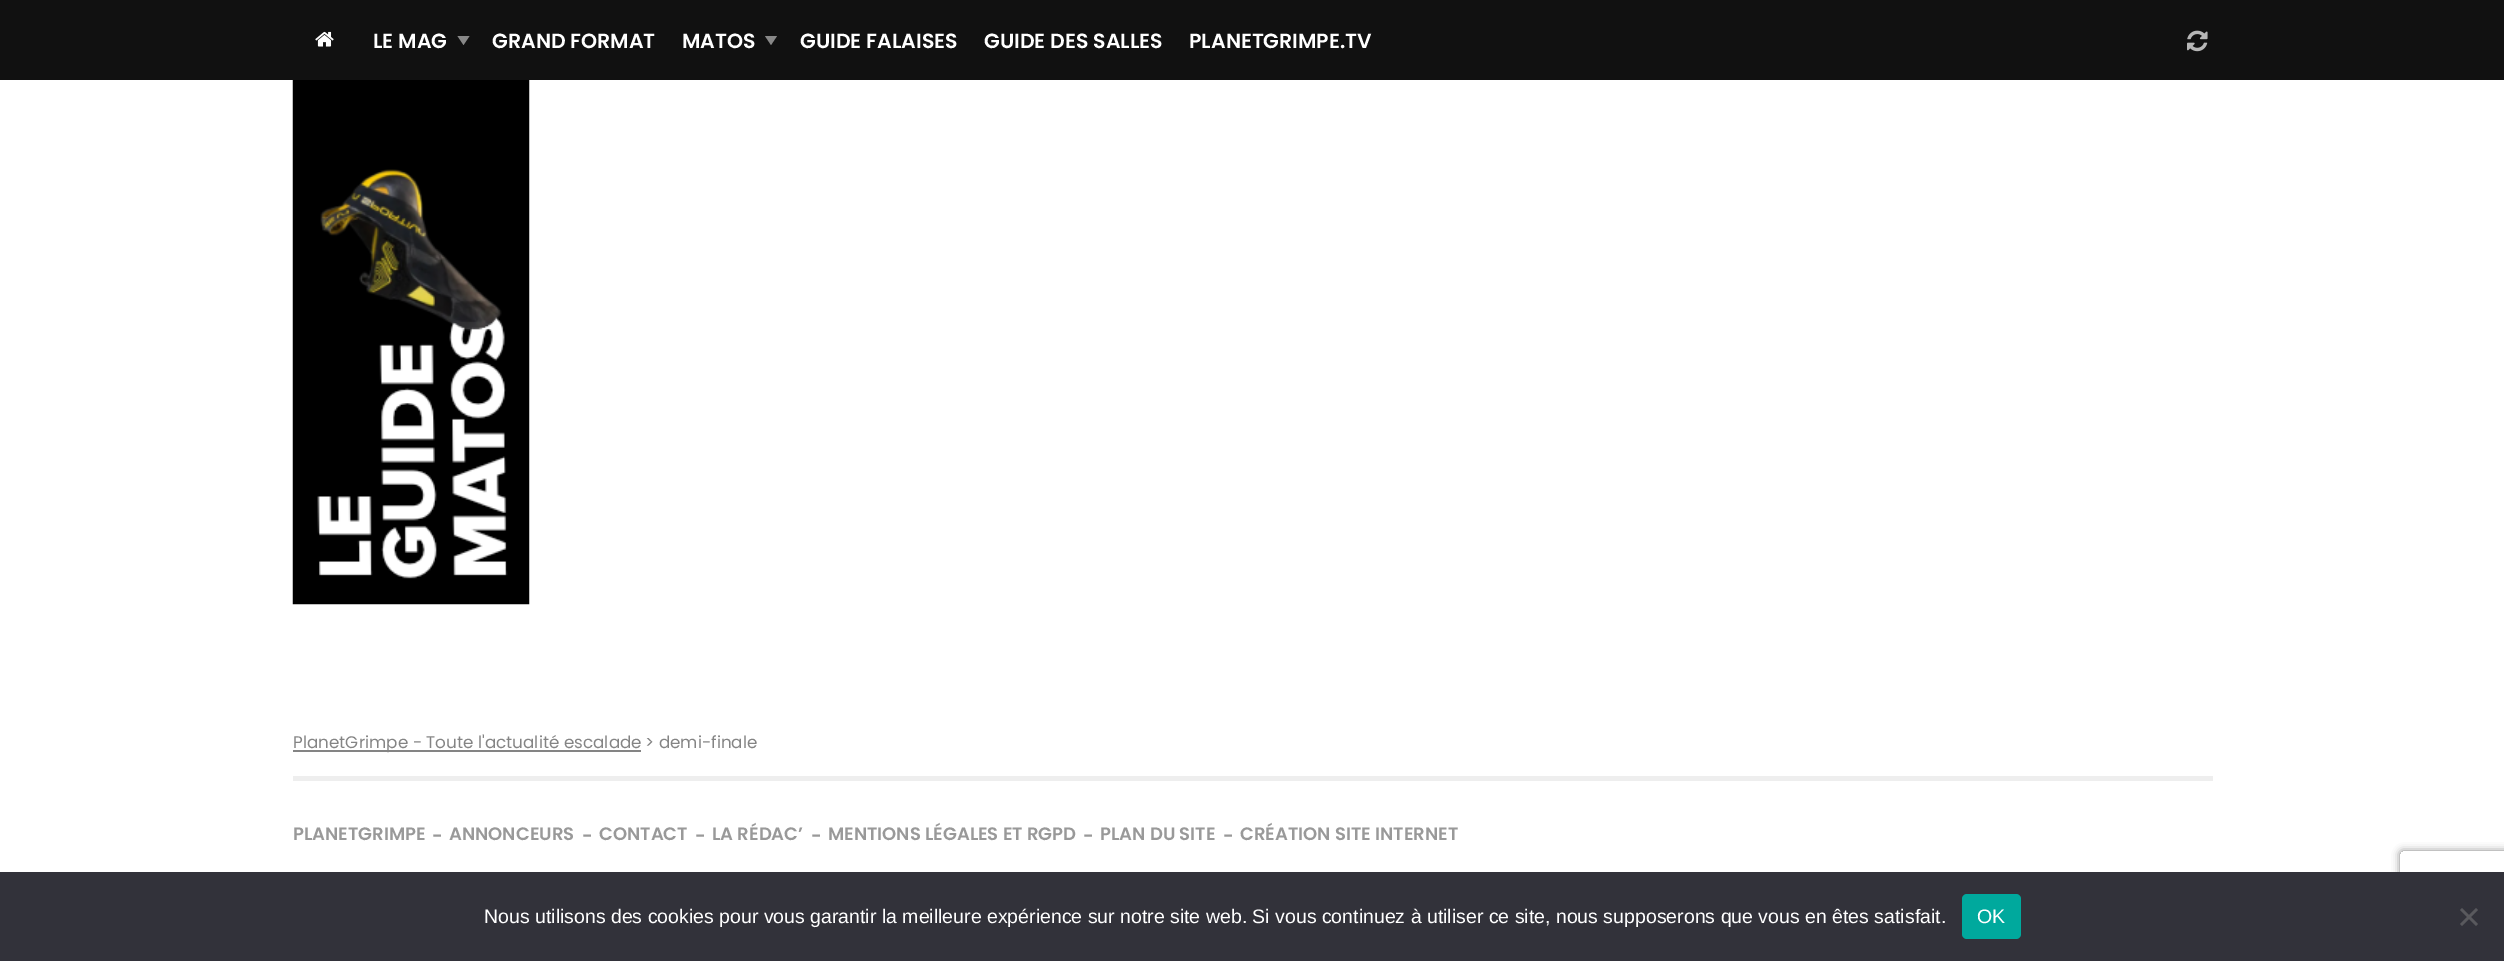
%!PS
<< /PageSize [2504 961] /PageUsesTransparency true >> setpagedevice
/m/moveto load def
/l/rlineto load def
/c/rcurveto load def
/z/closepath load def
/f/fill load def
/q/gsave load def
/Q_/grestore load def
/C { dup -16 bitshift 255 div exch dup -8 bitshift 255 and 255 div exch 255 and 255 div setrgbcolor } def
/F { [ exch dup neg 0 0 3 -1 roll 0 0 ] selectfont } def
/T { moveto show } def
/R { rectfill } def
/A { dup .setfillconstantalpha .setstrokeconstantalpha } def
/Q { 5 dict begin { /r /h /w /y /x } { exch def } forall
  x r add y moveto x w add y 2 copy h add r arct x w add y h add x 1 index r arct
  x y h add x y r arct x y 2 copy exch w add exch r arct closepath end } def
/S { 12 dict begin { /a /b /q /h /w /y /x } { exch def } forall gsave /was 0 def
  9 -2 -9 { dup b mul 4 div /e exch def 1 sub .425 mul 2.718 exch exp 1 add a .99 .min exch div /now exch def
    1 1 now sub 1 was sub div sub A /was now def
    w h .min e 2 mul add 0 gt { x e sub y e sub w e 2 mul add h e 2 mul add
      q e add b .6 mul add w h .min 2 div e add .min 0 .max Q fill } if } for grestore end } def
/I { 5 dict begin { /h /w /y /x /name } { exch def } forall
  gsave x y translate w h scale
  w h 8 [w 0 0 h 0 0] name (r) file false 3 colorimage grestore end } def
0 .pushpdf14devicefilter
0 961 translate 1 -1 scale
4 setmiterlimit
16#FFFFFF C
0 0 2504 961 R
16#111111 C
0 0 2504 80 R
(1.rgb) 315 31 19 16 I
/Poppins-SemiBold 20.5 F
16#FFFFFF C
(LE MAG) 373 48 T
16#888888 C
457.5 36 m 12 0 l -6 9 l z f
16#FFFFFF C
(GRAND FORMAT) 492 48 T
(MATOS) 682 48 T
16#888888 C
765 36 m 12 0 l -6 9 l z f
16#FFFFFF C
(GUIDE FALAISES) 800 48 T
(GUIDE DES SALLES) 984 48 T
(PLANETGRIMPE.TV) 1189 48 T
(2.rgb) 2187 30 21 22 I
(3.rgb) 292 80 238 525 I
16#848484 C
293 750 348 2 R
/Poppins-Regular 16.8 F
(PlanetGrimpe - Toute l'actualité escalade) 293 748 T
(> demi-finale) 645 748 T
16#EEEEEE C
293 776 1920 5 R
/Poppins-SemiBold 18 F
16#999999 C
(PLANETGRIMPE) 293 840 T
(-) 432 842 T
(ANNONCEURS) 449 840 T
(-) 582 842 T
(CONTACT) 599 840 T
(-) 695 842 T
(LA RÉDAC’) 712 840 T
(-) 811 842 T
(MENTIONS LÉGALES ET RGPD) 828 840 T
(-) 1083 842 T
(PLAN DU SITE) 1100 840 T
(-) 1223 842 T
(CRÉATION SITE INTERNET) 1240 840 T
q
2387 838 m 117 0 l 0 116 l -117 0 l z 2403 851 m 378 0 l 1.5 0 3 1.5 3 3 c 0 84 l 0 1.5 -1.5 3 -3 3 c -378 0 l -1.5 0 -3 -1.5 -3 -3 c 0 -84 l 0 -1.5 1.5 -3 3 -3 c z eoclip newpath
16#808080 C
2400 851 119 90 3 4 1 S
Q_
16#32323A C
0 872 2504 89 R
/LiberationSans-Regular 19.5 F
16#FFFFFF C
(Nous utilisons des cookies pour vous garantir la meilleure expérience sur notre site web. Si vous continuez à utiliser ce site, nous supposerons que vous en êtes satisfait.) 484 923 T
16#00A99D C
1962 894 59 45 5 Q f
16#FFFFFF C
(OK) 1977 923 T
16#59595D C
2476 908 m 2 2 l -16 16 l -2 -2 l z f
2460 910 m 2 -2 l 16 16 l -2 2 l z f
.poppdf14devicefilter showpage
